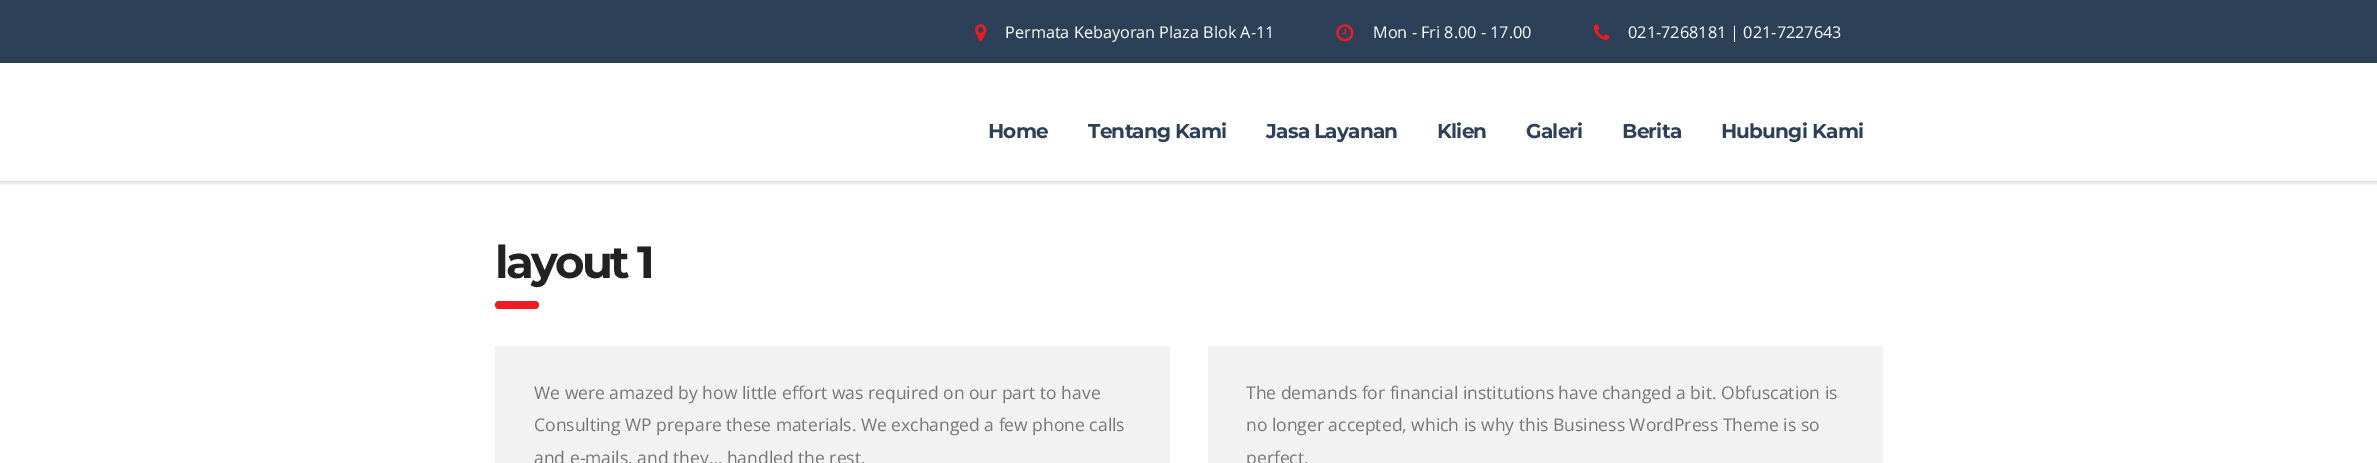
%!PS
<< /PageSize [2377 463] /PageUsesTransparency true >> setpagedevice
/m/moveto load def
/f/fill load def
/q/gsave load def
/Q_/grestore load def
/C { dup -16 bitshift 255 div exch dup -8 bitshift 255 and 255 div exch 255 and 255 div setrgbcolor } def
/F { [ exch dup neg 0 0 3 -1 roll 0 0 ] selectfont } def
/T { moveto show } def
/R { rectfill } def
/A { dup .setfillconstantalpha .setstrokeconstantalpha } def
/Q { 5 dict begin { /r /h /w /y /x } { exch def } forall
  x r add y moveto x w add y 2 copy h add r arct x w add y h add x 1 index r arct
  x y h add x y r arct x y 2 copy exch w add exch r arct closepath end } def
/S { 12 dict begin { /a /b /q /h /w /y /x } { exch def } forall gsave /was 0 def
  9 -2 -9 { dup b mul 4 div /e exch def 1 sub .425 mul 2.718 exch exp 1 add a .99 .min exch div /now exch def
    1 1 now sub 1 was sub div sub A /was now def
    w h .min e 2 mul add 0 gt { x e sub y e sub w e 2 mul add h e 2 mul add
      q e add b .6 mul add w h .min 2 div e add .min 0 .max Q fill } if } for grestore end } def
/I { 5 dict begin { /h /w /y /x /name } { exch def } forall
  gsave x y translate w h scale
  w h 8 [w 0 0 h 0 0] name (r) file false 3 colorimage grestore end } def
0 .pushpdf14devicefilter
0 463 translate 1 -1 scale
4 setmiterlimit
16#FFFFFF C
0 0 2377 463 R
q
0 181 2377 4 rectclip
16#000000 C
0 64 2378 119 0 2 .15 S
Q_
16#2C4157 C
0 0 2377 63 R
(1.rgb) 975 24 12 18 I
/OpenSans-Regular 16.25 F
16#FFFFFF C
(Permata Kebayoran Plaza Blok A-11) 1005 38 T
(2.rgb) 1336 24 18 18 I
(Mon - Fri 8.00 - 17.00) 1373 38 T
(3.rgb) 1593 24 17 16 I
(021-7268181 | 021-7227643) 1628 38 T
/Montserrat-Bold 20 F
16#2C4157 C
988 138 m -.75 0 (Home) ashow
1088 138 m -.75 0 (Tentang Kami) ashow
1266 138 m -.75 0 (Jasa Layanan) ashow
1437 138 m -.75 0 (Klien) ashow
1526 138 m -.75 0 (Galeri) ashow
1622 138 m -.75 0 (Berita) ashow
1721 138 m -.75 0 (Hubungi Kami) ashow
/Montserrat-Bold 45 F
16#222222 C
495 278 m -2.75 0 (layout 1) ashow
16#ED1C24 C
495 301 44 8 4 Q f
16#F2F2F2 C
495 346 675 117 R
/OpenSans-Regular 17.5 F
16#777777 C
(We were amazed by how little effort was required on our part to have) 534 399 T
(Consulting WP prepare these materials. We exchanged a few phone calls) 534 431 T
(and e-mails, and they… handled the rest.) 534 464 T
16#F2F2F2 C
1208 346 675 117 R
16#777777 C
(The demands for financial institutions have changed a bit. Obfuscation is) 1246 399 T
(no longer accepted, which is why this Business WordPress Theme is so) 1246 431 T
(perfect.) 1246 464 T
.poppdf14devicefilter showpage
